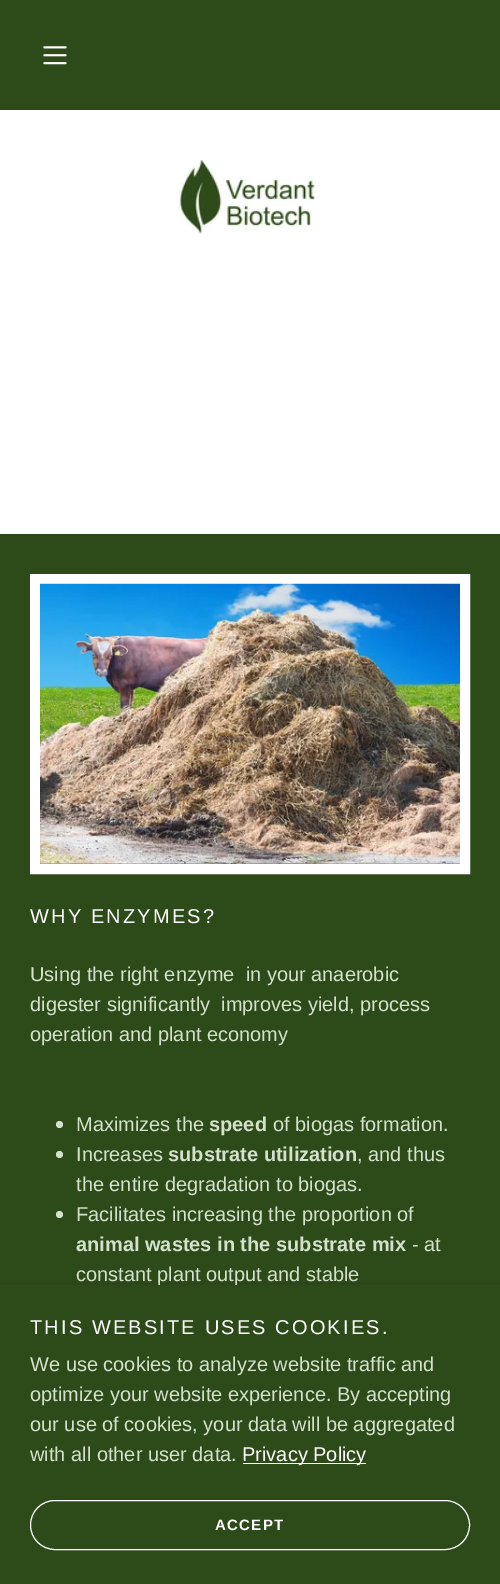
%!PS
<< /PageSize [500 1584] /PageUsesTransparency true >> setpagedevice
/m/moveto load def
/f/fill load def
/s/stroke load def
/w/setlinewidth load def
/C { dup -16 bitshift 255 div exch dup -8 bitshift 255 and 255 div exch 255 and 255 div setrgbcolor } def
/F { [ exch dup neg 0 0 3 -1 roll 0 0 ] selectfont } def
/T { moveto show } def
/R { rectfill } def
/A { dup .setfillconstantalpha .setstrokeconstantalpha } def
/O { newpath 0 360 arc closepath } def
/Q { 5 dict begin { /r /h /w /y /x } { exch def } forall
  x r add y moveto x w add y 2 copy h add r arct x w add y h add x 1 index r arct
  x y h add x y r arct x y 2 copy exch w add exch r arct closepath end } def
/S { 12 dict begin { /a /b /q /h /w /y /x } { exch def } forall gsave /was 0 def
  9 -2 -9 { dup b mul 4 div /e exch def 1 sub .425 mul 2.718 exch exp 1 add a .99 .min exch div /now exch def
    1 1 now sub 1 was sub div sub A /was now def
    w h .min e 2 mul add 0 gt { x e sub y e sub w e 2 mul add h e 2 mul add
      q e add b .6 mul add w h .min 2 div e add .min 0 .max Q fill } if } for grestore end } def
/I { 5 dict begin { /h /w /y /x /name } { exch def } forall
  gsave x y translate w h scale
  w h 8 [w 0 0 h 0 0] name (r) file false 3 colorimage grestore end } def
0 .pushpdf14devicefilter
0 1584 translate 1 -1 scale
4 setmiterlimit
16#2D4A19 C
0 0 500 1584 R
16#FFFFFF C
0 110 500 424 R
(1.rgb) 43 46 24 19 I
(2.rgb) 178 159 138 75 I
10 w
35 579 430 290 rectstroke
(3.rgb) 40 583 420 281 I
/LiberationSans-Regular 20 F
30 923 m 2.15 0 (WHY ENZYMES?) ashow
16#D3E1CD C
(Using the right enzyme  in your anaerobic) 30 981 T
(digester significantly  improves yield, process) 30 1011 T
(operation and plant economy) 30 1041 T
59.5 1124.5 3.5 O f
(Maximizes the) 76 1131 T
/LiberationSans-Bold 20 F
(speed) 209 1131 T
/LiberationSans-Regular 20 F
(of biogas formation.) 273 1131 T
59.5 1154.5 3.5 O f
(Increases) 76 1161 T
/LiberationSans-Bold 20 F
(substrate utilization) 168 1161 T
/LiberationSans-Regular 20 F
(, and thus) 357 1161 T
(the entire degradation to biogas.) 76 1191 T
59.5 1214.5 3.5 O f
(Facilitates increasing the proportion of) 76 1221 T
/LiberationSans-Bold 20 F
(animal wastes in the substrate mix) 76 1251 T
/LiberationSans-Regular 20 F
(- at) 412 1251 T
(constant plant output and stable) 76 1281 T
16#000000 C
0 1288 500 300 0 4 .3 S
16#2D4A19 C
0 1285 500 299 R
16#FFFFFF C
30 1334 m 2.15 0 (THIS WEBSITE USES COOKIES.) ashow
16#D3E1CD C
(We use cookies to analyze website traffic and) 30 1371 T
(optimize your website experience. By accepting) 30 1401 T
(our use of cookies, your data will be aggregated) 30 1431 T
(with all other user data.) 30 1461 T
16#FFFFFF C
243 1463 123 1 R
(Privacy Policy) 242 1461 T
1 w
30.5 1500.5 439 49 24.5 Q s
/LiberationSans-Bold 15 F
215 1530 m 1.25 0 (ACCEPT) ashow
.poppdf14devicefilter showpage
